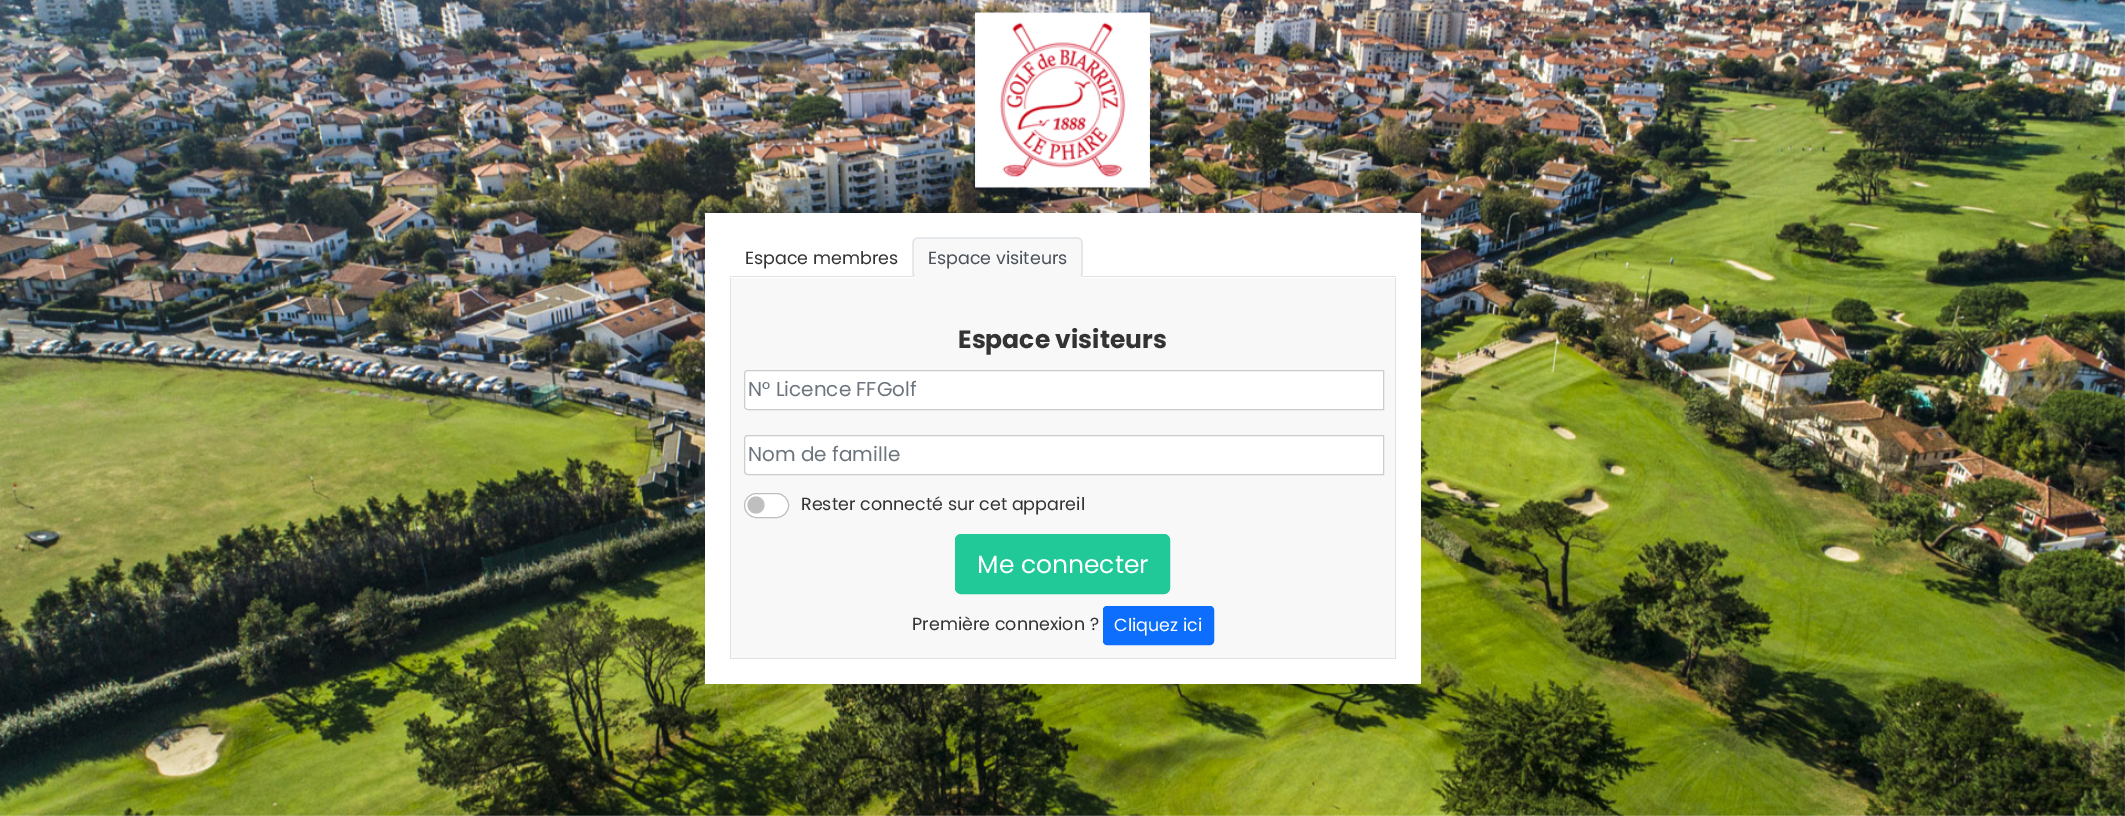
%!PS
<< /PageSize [2125 816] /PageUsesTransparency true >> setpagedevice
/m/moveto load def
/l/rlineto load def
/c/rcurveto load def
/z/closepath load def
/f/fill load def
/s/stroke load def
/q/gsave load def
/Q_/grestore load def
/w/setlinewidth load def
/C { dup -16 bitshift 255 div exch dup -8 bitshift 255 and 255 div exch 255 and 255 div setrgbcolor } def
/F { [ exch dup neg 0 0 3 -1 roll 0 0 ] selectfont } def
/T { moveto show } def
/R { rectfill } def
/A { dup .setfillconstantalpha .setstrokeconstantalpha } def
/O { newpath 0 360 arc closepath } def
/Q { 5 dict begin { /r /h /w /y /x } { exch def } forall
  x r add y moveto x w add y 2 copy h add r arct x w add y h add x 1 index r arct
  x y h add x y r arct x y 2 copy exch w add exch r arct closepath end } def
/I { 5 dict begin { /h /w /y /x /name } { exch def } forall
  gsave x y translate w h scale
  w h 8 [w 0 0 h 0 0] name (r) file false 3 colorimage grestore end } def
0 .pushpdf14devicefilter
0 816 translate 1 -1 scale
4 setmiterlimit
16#FFFFFF C
0 0 2125 816 R
(1.rgb) 0 0 2125 816 I
(2.rgb) 975 12 175 176 I
705 213 716 471 R
16#DEE2E6 C
730 276 666 1 R
/Poppins-Regular 17.5 F
16#333333 C
(Espace membres) 745 264 T
16#F8F8F8 C
918 238 m 160 0 l 3 0 5 2 5 5 c 0 31 l 0 2 -2 4 -4 4 c -162 0 l -2 0 -4 -2 -4 -4 c 0 -31 l 0 -3 2 -5 5 -5 c z f
16#DEE2E6 C
1.2 w
914 276 m -1 -2 l 0 -31.5 l 0 -1 .5 -2.5 1.5 -3 c .5 -1 2 -1.5 3 -1.5 c 160 0 l 1 0 2.5 .5 3 1.5 c 1 .5 1.5 2 1.5 3 c 0 31.5 l -1 2 l s
16#495057 C
(Espace visiteurs) 928 264 T
16#F8F8F8 C
731 278 664 380 R
16#DEE2E6 C
1395 278 1 381 R
730 658 666 1 R
730 278 1 381 R
/Poppins-Bold 25 F
16#333333 C
(Espace visiteurs) 958 348 T
16#FFFFFF C
747.5 371 m 635.5 0 l 0 38 l -635.5 0 l -1.5 0 -2.5 -1 -2.5 -2.5 c 0 -33 l 0 -1.5 1 -2.5 2.5 -2.5 c z f
16#CCCCCC C
1 w
748 370.5 m 635.5 0 l 0 39 l -635.5 0 l -2 0 -3.5 -1.5 -3.5 -3.5 c 0 -32 l 0 -2 1.5 -3.5 3.5 -3.5 c z s
/Poppins-Regular 20 F
16#6C757D C
(N° Licence FFGolf) 748 396 T
16#FFFFFF C
747.5 436 m 635.5 0 l 0 38 l -635.5 0 l -1.5 0 -2.5 -1 -2.5 -2.5 c 0 -33 l 0 -1.5 1 -2.5 2.5 -2.5 c z f
16#CCCCCC C
748 435.5 m 635.5 0 l 0 39 l -635.5 0 l -2 0 -3.5 -1.5 -3.5 -3.5 c 0 -32 l 0 -2 1.5 -3.5 3.5 -3.5 c z s
16#6C757D C
(Nom de famille) 748 461 T
16#FFFFFF C
744 493 45 25 12.5 Q f
16#BFBFBF C
756 505 8.5 O f
0.25 A
16#000000 C
744.5 493.5 44 24 12 Q s
/Poppins-Regular 17.5 F
1 A
16#333333 C
(Rester connecté sur cet appareil) 801 510 T
16#20C997 C
955.5 534.5 214 59 5.5 Q q f Q_
s
/Poppins-Regular 25 F
16#FFFFFF C
(Me connecter) 977 573 T
/Poppins-Regular 17.5 F
16#333333 C
(Première connexion ?) 912 630 T
16#0D6EFD C
1103.5 606.5 110 38 3.5 Q q f Q_
s
16#FFFFFF C
(Cliquez ici) 1114 631 T
.poppdf14devicefilter showpage
